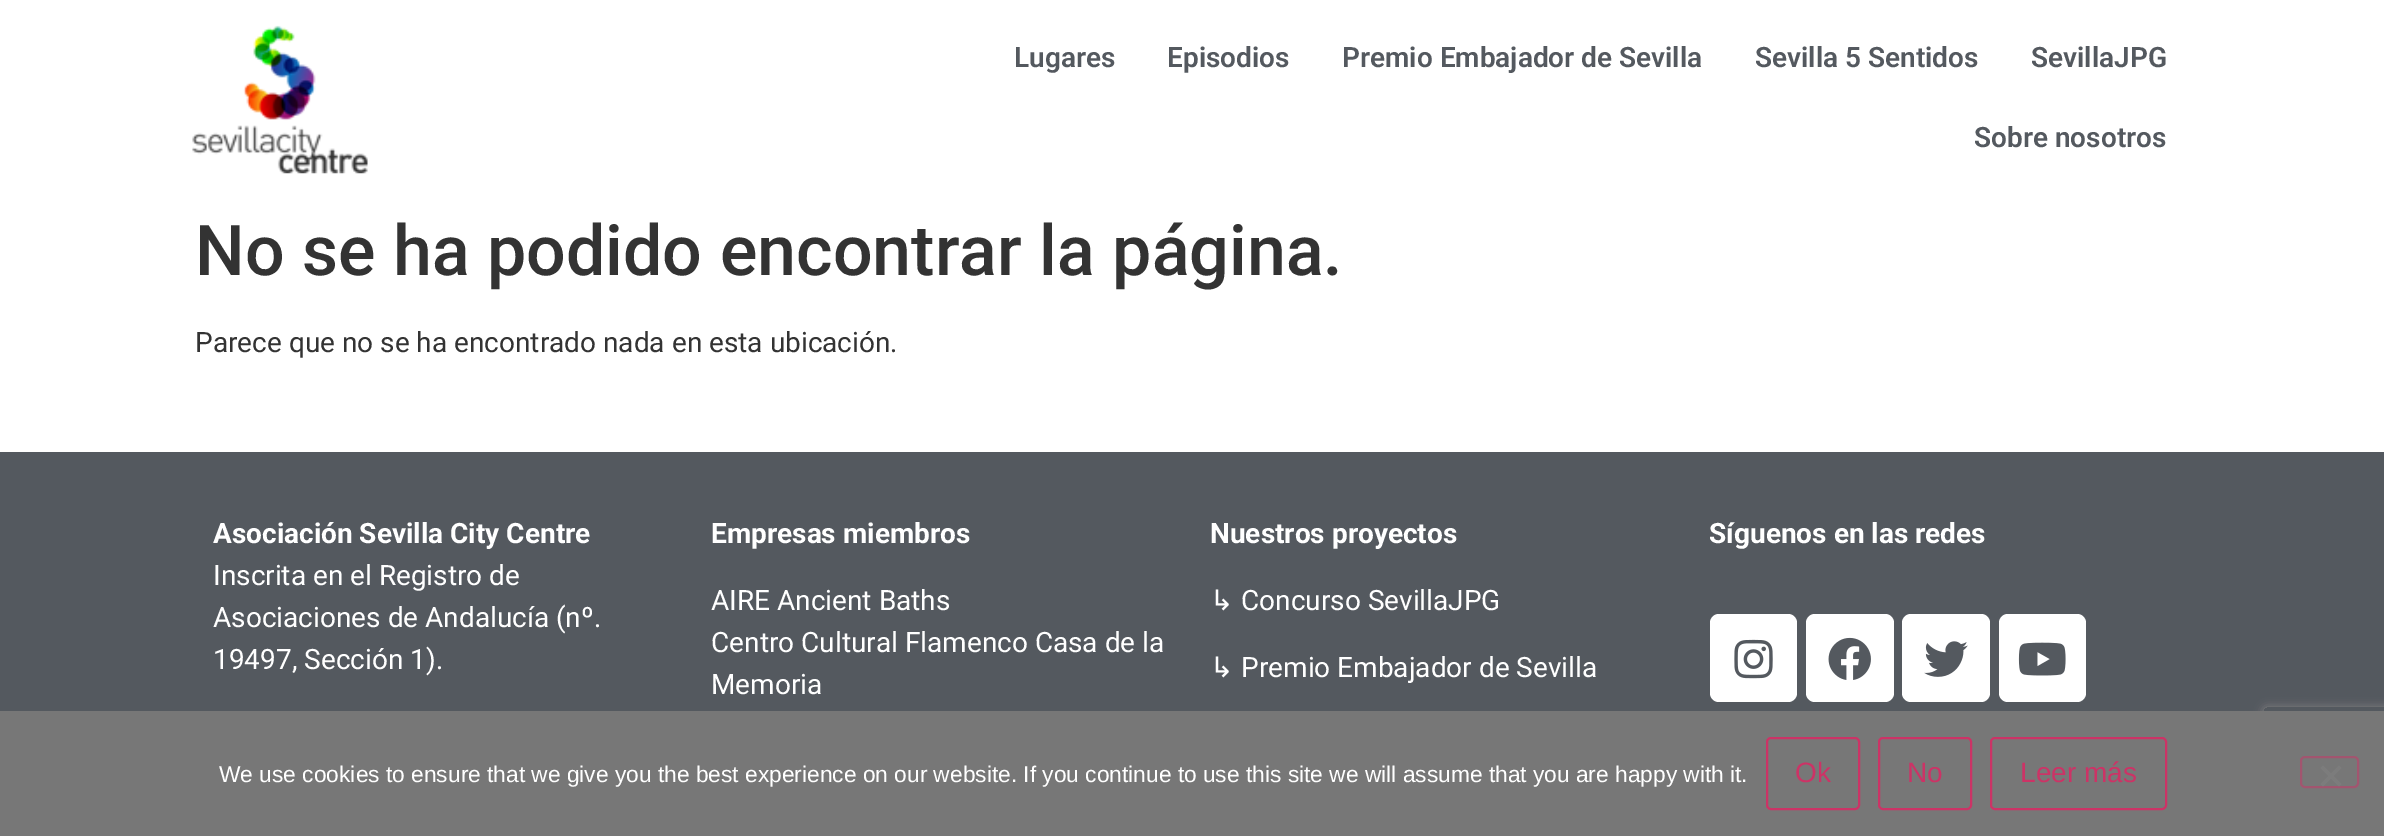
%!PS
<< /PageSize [2384 836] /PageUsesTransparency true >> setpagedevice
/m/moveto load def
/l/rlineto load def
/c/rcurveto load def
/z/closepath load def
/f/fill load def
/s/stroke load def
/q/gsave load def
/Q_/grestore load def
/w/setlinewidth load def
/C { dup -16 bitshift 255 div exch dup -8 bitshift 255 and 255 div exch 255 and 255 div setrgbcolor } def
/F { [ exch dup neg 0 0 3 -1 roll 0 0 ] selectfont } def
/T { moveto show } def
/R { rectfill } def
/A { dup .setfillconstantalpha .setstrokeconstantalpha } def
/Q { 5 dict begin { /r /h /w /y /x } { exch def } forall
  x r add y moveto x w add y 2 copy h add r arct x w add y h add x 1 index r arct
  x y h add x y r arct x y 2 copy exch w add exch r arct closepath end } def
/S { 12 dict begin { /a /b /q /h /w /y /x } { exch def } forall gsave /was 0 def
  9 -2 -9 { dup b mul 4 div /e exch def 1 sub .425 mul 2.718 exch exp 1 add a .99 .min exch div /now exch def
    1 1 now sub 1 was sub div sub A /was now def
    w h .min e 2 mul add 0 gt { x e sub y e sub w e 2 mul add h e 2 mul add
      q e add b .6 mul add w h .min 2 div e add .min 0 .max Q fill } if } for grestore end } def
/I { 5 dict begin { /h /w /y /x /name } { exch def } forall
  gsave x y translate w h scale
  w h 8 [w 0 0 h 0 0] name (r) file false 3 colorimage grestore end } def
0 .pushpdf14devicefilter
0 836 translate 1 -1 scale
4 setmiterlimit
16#FFFFFF C
0 0 2384 836 R
(1.rgb) 192 25 176 149 I
/Roboto-SemiBold 28 F
16#54595F C
(Lugares) 1014 67 T
(Episodios) 1167 67 T
(Premio Embajador de Sevilla) 1342 67 T
(Sevilla 5 Sentidos) 1755 67 T
(SevillaJPG) 2031 67 T
(Sobre nosotros) 1974 147 T
/Roboto-Medium 70 F
16#333333 C
(No se ha podido encontrar la página.) 195 275 T
/Roboto-Regular 28 F
(Parece que no se ha encontrado nada en esta ubicación.) 195 352 T
16#54595F C
0 452 2384 259 R
/Roboto-Bold 28 F
16#FFFFFF C
(Asociación Sevilla City Centre) 213 543 T
/Roboto-Regular 28 F
(Inscrita en el Registro de) 213 585 T
(Asociaciones de Andalucía \(nº.) 213 627 T
(19497, Sección 1\).) 213 669 T
/Roboto-Bold 28 F
(Empresas miembros) 711 543 T
/Roboto-Regular 28 F
(AIRE Ancient Baths) 711 610 T
(Centro Cultural Flamenco Casa de la) 711 652 T
(Memoria) 711 694 T
/Roboto-Bold 28 F
(Nuestros proyectos) 1210 543 T
/DejaVuSans-Regular 28 F
(↳) 1210 610 T
/Roboto-Regular 28 F
(Concurso SevillaJPG) 1241 610 T
/DejaVuSans-Regular 28 F
(↳) 1210 677 T
/Roboto-Regular 28 F
(Premio Embajador de Sevilla) 1241 677 T
/Roboto-Bold 28 F
(Síguenos en las redes) 1709 543 T
1710 614 87 88 9 Q f
(2.rgb) 1734 639 39 40 I
1806 614 88 88 9 Q f
(3.rgb) 1828 637 43 43 I
1902 614 88 88 9 Q f
(4.rgb) 1924 641 44 36 I
1999 614 87 88 9 Q f
(5.rgb) 2018 642 48 34 I
q
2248 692 m 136 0 l 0 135 l -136 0 l z 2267 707 m 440 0 l 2 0 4 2 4 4 c 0 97 l 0 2 -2 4 -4 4 c -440 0 l -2 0 -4 -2 -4 -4 c 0 -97 l 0 -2 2 -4 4 -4 c z eoclip newpath
16#808080 C
2263 707 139 105 4 4.5 1 S
Q_
16#777777 C
0 711 2384 125 R
/LiberationSans-Regular 22.75 F
16#FFFFFF C
(We use cookies to ensure that we give you the best experience on our website. If you continue to use this site we will assume that you are happy with it.) 219 782 T
16#CC3366 C
2 w
1767 738 92 71 4 Q s
/LiberationSans-Regular 28 F
(Ok) 1795 782 T
1879 738 92 71 4 Q s
(No) 1907 782 T
1991 738 175 71 4 Q s
(Leer más) 2020 782 T
16#A2556F C
2301 757 57 30 4 Q s
16#7C7C7C C
2339 765.5 m 2.5 2.5 l -18.5 18.5 l -2.5 -2.5 l z f
2320.5 768 m 2.5 -2.5 l 18.5 18.5 l -2.5 2.5 l z f
.poppdf14devicefilter showpage
